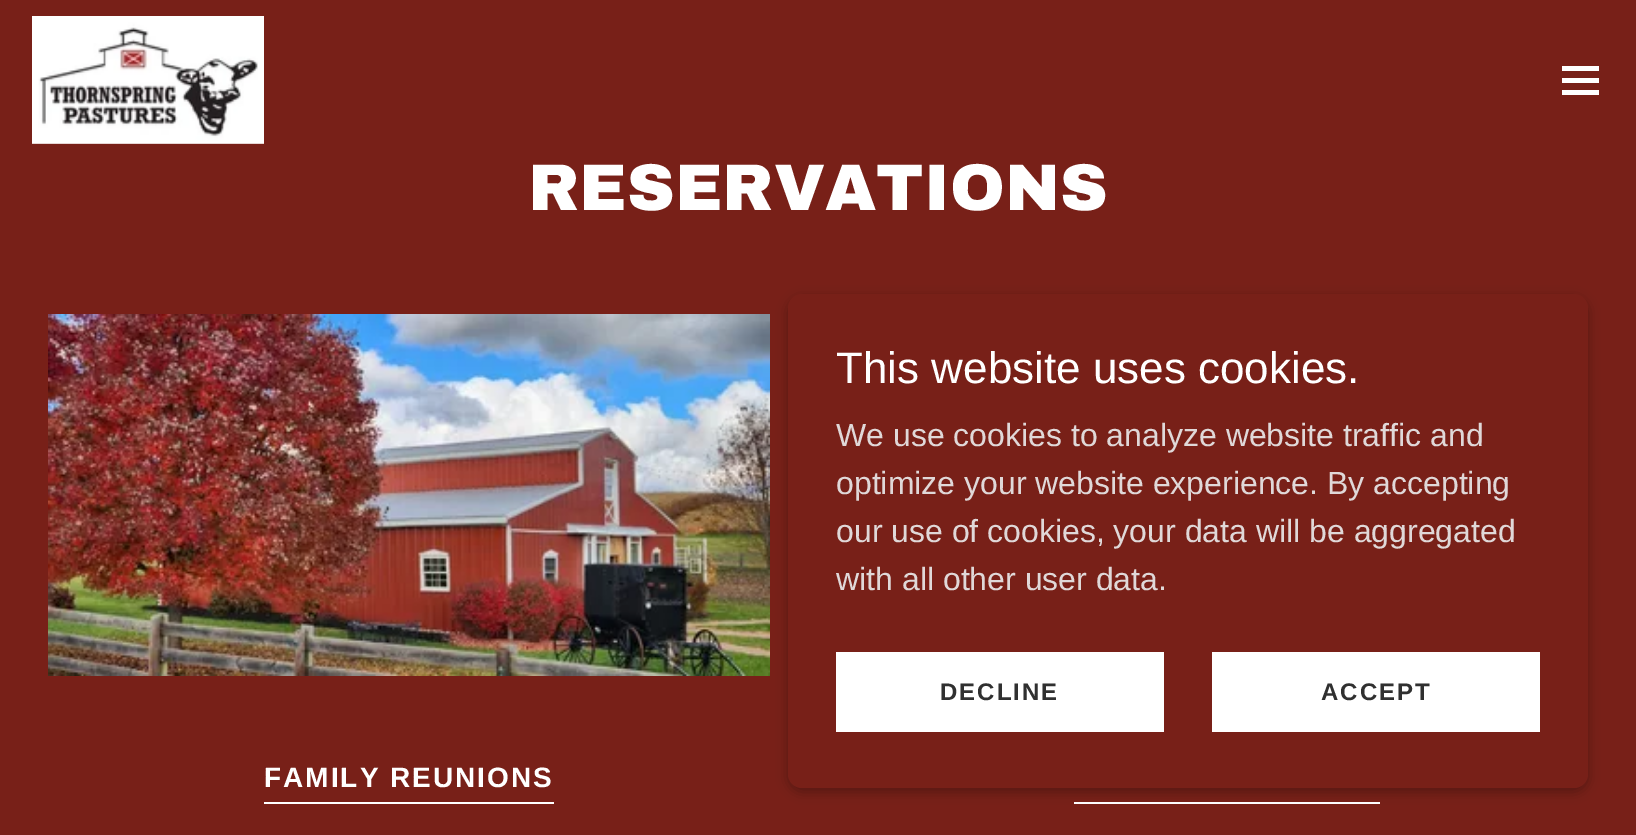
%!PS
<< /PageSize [1636 835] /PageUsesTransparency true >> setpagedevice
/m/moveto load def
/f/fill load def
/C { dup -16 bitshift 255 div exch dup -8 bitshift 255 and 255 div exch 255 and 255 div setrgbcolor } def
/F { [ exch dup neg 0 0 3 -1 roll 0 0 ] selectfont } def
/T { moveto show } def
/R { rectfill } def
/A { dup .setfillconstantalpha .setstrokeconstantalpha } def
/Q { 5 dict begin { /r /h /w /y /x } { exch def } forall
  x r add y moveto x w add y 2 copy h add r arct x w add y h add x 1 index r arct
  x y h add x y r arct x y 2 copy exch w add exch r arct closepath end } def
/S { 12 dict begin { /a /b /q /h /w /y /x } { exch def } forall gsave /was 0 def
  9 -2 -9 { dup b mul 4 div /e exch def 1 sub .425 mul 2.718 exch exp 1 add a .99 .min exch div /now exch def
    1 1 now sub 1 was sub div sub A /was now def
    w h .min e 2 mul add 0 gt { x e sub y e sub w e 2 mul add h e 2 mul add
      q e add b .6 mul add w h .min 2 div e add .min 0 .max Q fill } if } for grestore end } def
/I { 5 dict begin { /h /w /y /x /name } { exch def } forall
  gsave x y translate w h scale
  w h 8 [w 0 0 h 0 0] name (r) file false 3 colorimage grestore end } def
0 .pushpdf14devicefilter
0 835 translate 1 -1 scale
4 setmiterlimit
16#782018 C
0 0 1636 835 R
(1.rgb) 32 16 232 128 I
16#FFFFFF C
1562 66 37 5 R
1562 78 37 5 R
1562 90 37 5 R
/ArchivoBlack-Black 66 F
(RESERVATIONS) 528 210 T
(2.rgb) 48 314 722 362 I
264 802 290 2 R
/LiberationSans-Bold 28 F
264 787 m 2 0 (FAMILY REUNIONS) ashow
1074 802 306 2 R
16#000000 C
788 298 800 494 14 6 .3 S
16#782018 C
788 294 800 494 14 Q f
/LiberationSans-Regular 44 F
16#FFFFFF C
(This website uses cookies.) 836 383 T
/LiberationSans-Regular 32 F
16#E0D8D8 C
(We use cookies to analyze website traffic and) 836 446 T
(optimize your website experience. By accepting) 836 494 T
(our use of cookies, your data will be aggregated) 836 542 T
(with all other user data.) 836 590 T
16#FFFFFF C
836 652 328 80 R
/LiberationSans-Bold 24 F
16#303030 C
940 700 m 2 0 (DECLINE) ashow
16#FFFFFF C
1212 652 328 80 R
16#303030 C
1321 700 m 2 0 (ACCEPT) ashow
.poppdf14devicefilter showpage
